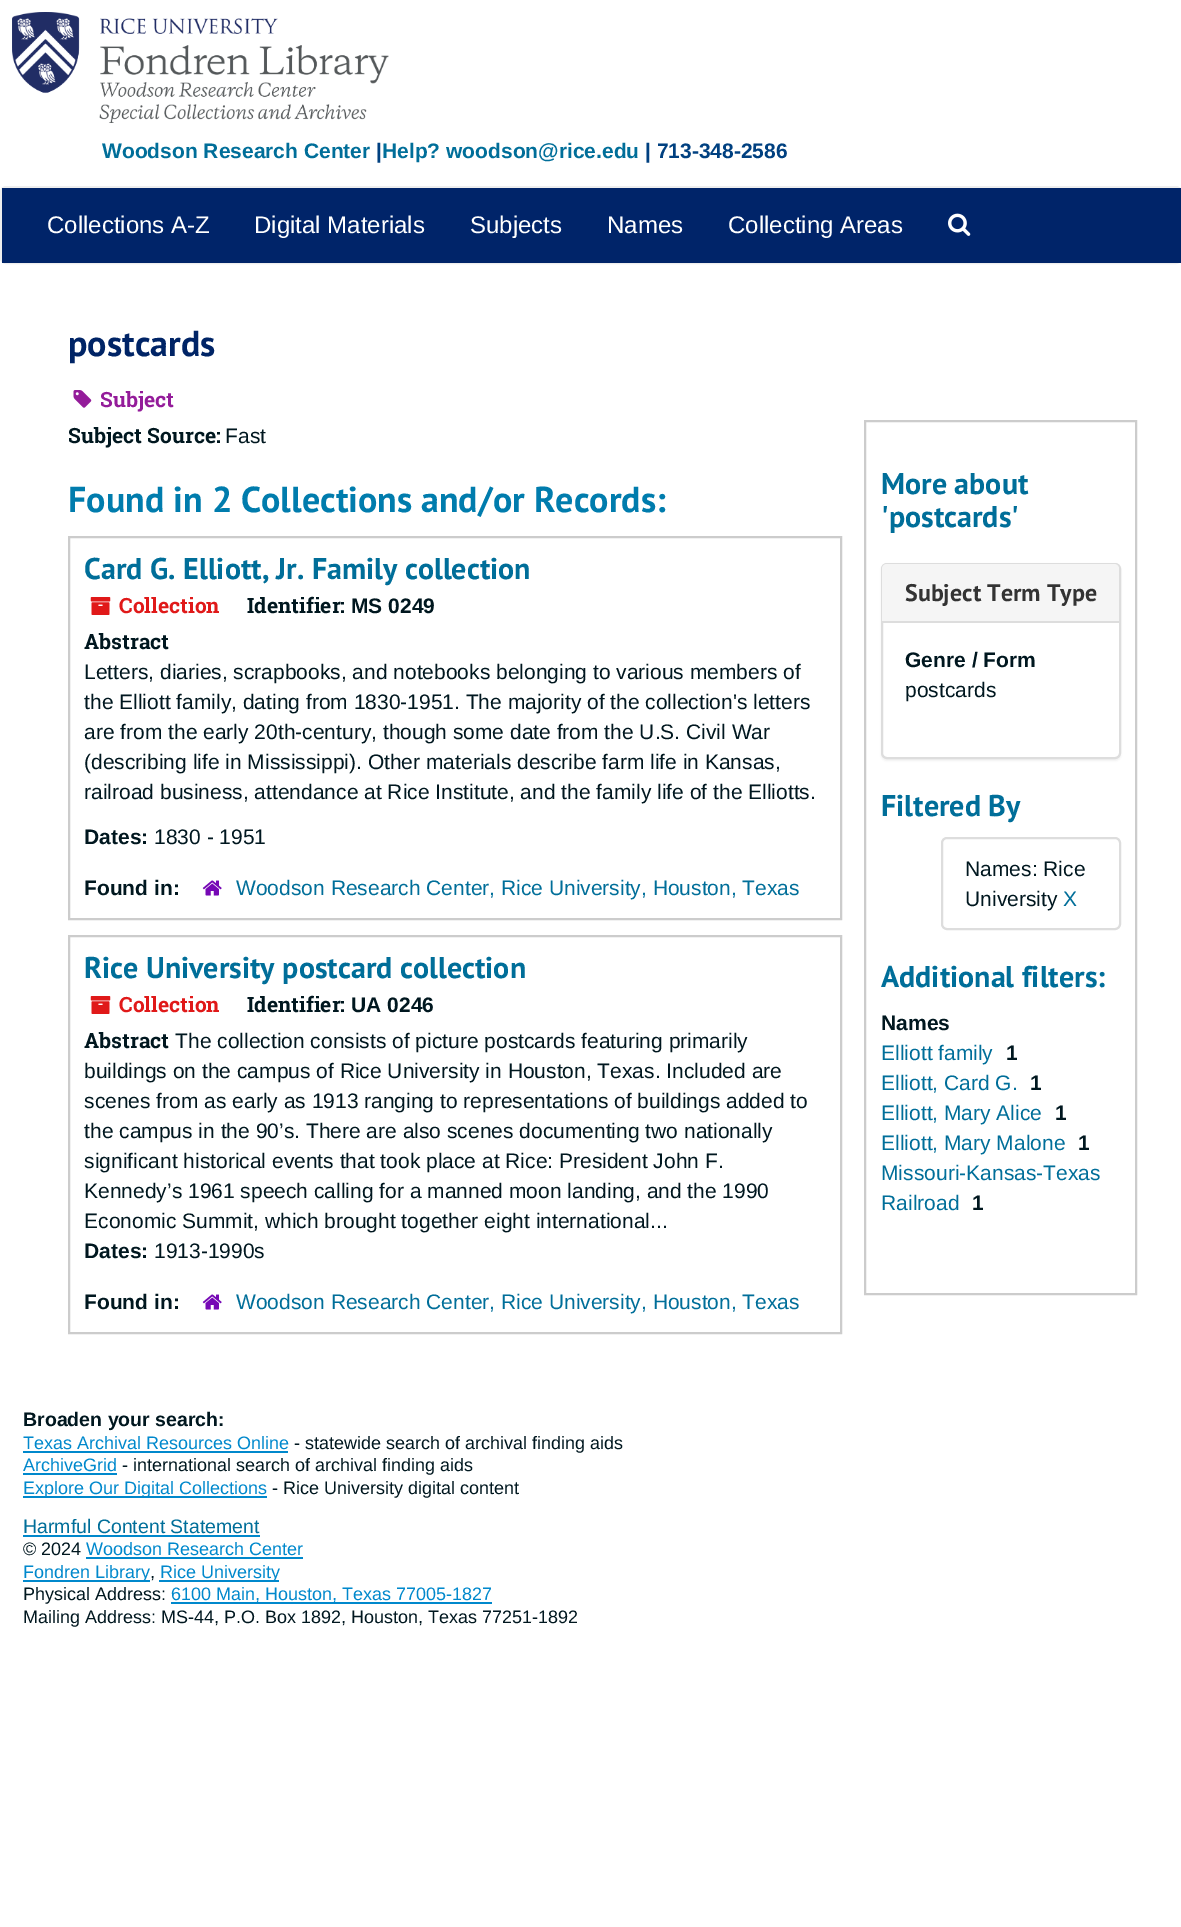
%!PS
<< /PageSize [1181 1927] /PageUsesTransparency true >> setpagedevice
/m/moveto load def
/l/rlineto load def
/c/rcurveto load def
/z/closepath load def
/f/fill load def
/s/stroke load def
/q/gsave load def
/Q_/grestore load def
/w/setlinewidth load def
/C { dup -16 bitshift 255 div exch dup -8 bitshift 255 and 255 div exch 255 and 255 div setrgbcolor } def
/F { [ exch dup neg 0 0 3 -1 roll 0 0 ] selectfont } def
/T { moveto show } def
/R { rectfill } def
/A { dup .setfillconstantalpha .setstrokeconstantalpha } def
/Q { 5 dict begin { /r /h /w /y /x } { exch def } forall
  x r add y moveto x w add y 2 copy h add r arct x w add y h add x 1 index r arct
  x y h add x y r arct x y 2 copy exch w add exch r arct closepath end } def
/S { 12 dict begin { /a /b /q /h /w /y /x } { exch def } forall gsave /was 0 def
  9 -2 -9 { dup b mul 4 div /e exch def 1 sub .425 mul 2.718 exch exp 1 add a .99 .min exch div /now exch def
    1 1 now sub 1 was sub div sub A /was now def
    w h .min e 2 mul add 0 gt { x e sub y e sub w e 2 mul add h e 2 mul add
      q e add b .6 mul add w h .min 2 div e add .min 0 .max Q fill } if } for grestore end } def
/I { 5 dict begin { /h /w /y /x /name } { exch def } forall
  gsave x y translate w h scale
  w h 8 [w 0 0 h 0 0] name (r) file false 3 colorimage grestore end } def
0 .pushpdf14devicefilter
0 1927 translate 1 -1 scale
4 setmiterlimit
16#FFFFFF C
0 0 1181 1927 R
(1.rgb) 12 12 377 111 I
/LiberationSans-Bold 21 F
16#006E99 C
(Woodson Research Center) 102 158 T
16#004080 C
(|) 376 158 T
16#006E99 C
(Help? woodson@rice.edu) 382 158 T
16#004080 C
(| 713-348-2586) 645 158 T
16#EEEEEE C
2 w
1 187 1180 76 5 Q s
16#002469 C
2 188 1179 75 R
/LiberationSans-Regular 24 F
16#FFFFFF C
(Collections A-Z) 47 233 T
(Digital Materials) 254 233 T
(Subjects) 470 233 T
(Names) 607 233 T
(Collecting Areas) 728 233 T
(2.rgb) 948 213 23 23 I
/PTSans-Bold 36 F
16#002466 C
(postcards) 68 356 T
(3.rgb) 73 390 19 18 I
/RobotoSlab-Bold 21 F
16#941C9A C
(Subject) 100 407 T
16#00171F C
(Subject Source:) 68 443 T
/LiberationSans-Regular 21 F
(Fast) 225 443 T
/PTSans-Bold 36 F
16#007CAD C
(Found in 2 Collections and/or Records:) 68 512 T
16#CCCCCC C
69 537 772 382 rectstroke
/PTSans-Bold 30 F
16#006E99 C
(Card G. Elliott, Jr. Family collection) 84 579 T
(4.rgb) 90 597 21 18 I
/RobotoSlab-Bold 21 F
16#E01919 C
(Collection) 119 613 T
16#00171F C
(Identifier:) 247 613 T
/LiberationSans-Bold 21 F
(MS 0249) 351 613 T
/RobotoSlab-Bold 21 F
(Abstract) 84 649 T
/LiberationSans-Regular 21 F
(Letters, diaries, scrapbooks, and notebooks belonging to various members of) 84 679 T
(the Elliott family, dating from 1830-1951. The majority of the collection's letters) 84 709 T
(are from the early 20th-century, though some date from the U.S. Civil War) 84 739 T
(\(describing life in Mississippi\). Other materials describe farm life in Kansas,) 84 769 T
(railroad business, attendance at Rice Institute, and the family life of the Elliotts.) 84 799 T
/LiberationSans-Bold 21 F
(Dates:) 84 844 T
/LiberationSans-Regular 21 F
(1830 - 1951) 154 844 T
/LiberationSans-Bold 21 F
(Found in:) 84 895 T
(5.rgb) 202 880 20 16 I
/LiberationSans-Regular 21 F
16#006E99 C
(Woodson Research Center, Rice University, Houston, Texas) 236 895 T
16#CCCCCC C
69 936 772 397 rectstroke
/PTSans-Bold 30 F
16#006E99 C
(Rice University postcard collection) 84 978 T
(4.rgb) 90 996 21 18 I
/RobotoSlab-Bold 21 F
16#E01919 C
(Collection) 119 1012 T
16#00171F C
(Identifier:) 247 1012 T
/LiberationSans-Bold 21 F
(UA 0246) 351 1012 T
/RobotoSlab-Bold 21 F
(Abstract) 84 1048 T
/LiberationSans-Regular 21 F
(The collection consists of picture postcards featuring primarily) 175 1048 T
(buildings on the campus of Rice University in Houston, Texas. Included are) 84 1078 T
(scenes from as early as 1913 ranging to representations of buildings added to) 84 1108 T
(the campus in the 90’s. There are also scenes documenting two nationally) 84 1138 T
(significant historical events that took place at Rice: President John F.) 84 1168 T
(Kennedy’s 1961 speech calling for a manned moon landing, and the 1990) 84 1198 T
(Economic Summit, which brought together eight international...) 84 1228 T
/LiberationSans-Bold 21 F
(Dates:) 84 1258 T
/LiberationSans-Regular 21 F
(1913-1990s) 154 1258 T
/LiberationSans-Bold 21 F
(Found in:) 84 1309 T
(5.rgb) 202 1294 20 16 I
/LiberationSans-Regular 21 F
16#006E99 C
(Woodson Research Center, Rice University, Houston, Texas) 236 1309 T
16#CCCCCC C
865 421 271 873 rectstroke
/PTSans-Bold 30 F
16#006E99 C
(More about) 881 494 T
('postcards') 881 527 T
16#000000 C
881 564 240 197 6 1 .05 S
16#FFFFFF C
882 564 238 194 5 Q q f Q_
16#DDDDDD C
s
16#F5F5F5 C
887 564 m 227 0 l 3 0 5 2 5 5 c 0 52 l -237 0 l 0 -52 l 0 -3 2 -5 5 -5 c z f
/PTSans-Bold 24 F
16#333333 C
(Subject Term Type) 905 601 T
16#DDDDDD C
882 621 237 2 R
/LiberationSans-Bold 21 F
16#00171F C
(Genre / Form) 905 667 T
/LiberationSans-Regular 21 F
(postcards) 905 697 T
/PTSans-Bold 30 F
16#006E99 C
(Filtered By) 881 816 T
16#DDDDDD C
942 838 178 91 5 Q s
/LiberationSans-Regular 21 F
16#00171F C
(Names: Rice) 965 876 T
(University) 965 906 T
16#006E99 C
(X) 1063 906 T
/PTSans-Bold 30 F
(Additional filters:) 881 987 T
/LiberationSans-Bold 21 F
16#00171F C
(Names) 881 1030 T
/LiberationSans-Regular 21 F
16#006E99 C
(Elliott family) 881 1060 T
/LiberationSans-Bold 21 F
16#00171F C
(1) 1006 1060 T
/LiberationSans-Regular 21 F
16#006E99 C
(Elliott, Card G.) 881 1090 T
/LiberationSans-Bold 21 F
16#00171F C
(1) 1030 1090 T
/LiberationSans-Regular 21 F
16#006E99 C
(Elliott, Mary Alice) 881 1120 T
/LiberationSans-Bold 21 F
16#00171F C
(1) 1055 1120 T
/LiberationSans-Regular 21 F
16#006E99 C
(Elliott, Mary Malone) 881 1150 T
/LiberationSans-Bold 21 F
16#00171F C
(1) 1078 1150 T
/LiberationSans-Regular 21 F
16#006E99 C
(Missouri-Kansas-Texas) 881 1180 T
(Railroad) 881 1210 T
/LiberationSans-Bold 21 F
16#00171F C
(1) 972 1210 T
/LiberationSans-Bold 19.5 F
(Broaden your search:) 23 1426 T
/LiberationSans-Regular 18 F
16#0088CC C
(Texas Archival Resources Online) 23 1449 T
23 1451 265 2 R
16#00171F C
(- statewide search of archival finding aids) 294 1449 T
16#0088CC C
(ArchiveGrid) 23 1471 T
23 1473 94 2 R
16#00171F C
(- international search of archival finding aids) 122 1471 T
16#0088CC C
23 1496 244 2 R
(Explore Our Digital Collections) 23 1494 T
16#00171F C
(- Rice University digital content) 272 1494 T
/LiberationSans-Regular 19.5 F
16#006E99 C
(Harmful Content Statement) 23 1533 T
16#0088CC C
23 1535 237 2 R
/LiberationSans-Regular 18 F
16#00171F C
(© 2024) 23 1555 T
16#0088CC C
(Woodson Research Center) 86 1555 T
86 1557 217 2 R
23 1580 127 2 R
(Fondren Library) 23 1578 T
16#00171F C
(,) 150 1578 T
16#0088CC C
159 1580 120 2 R
(Rice University) 160 1578 T
16#00171F C
(Physical Address:) 23 1600 T
16#0088CC C
171 1602 321 2 R
(6100 Main, Houston, Texas 77005-1827) 171 1600 T
16#00171F C
(Mailing Address: MS-44, P.O. Box 1892, Houston, Texas 77251-1892) 23 1623 T
.poppdf14devicefilter showpage
